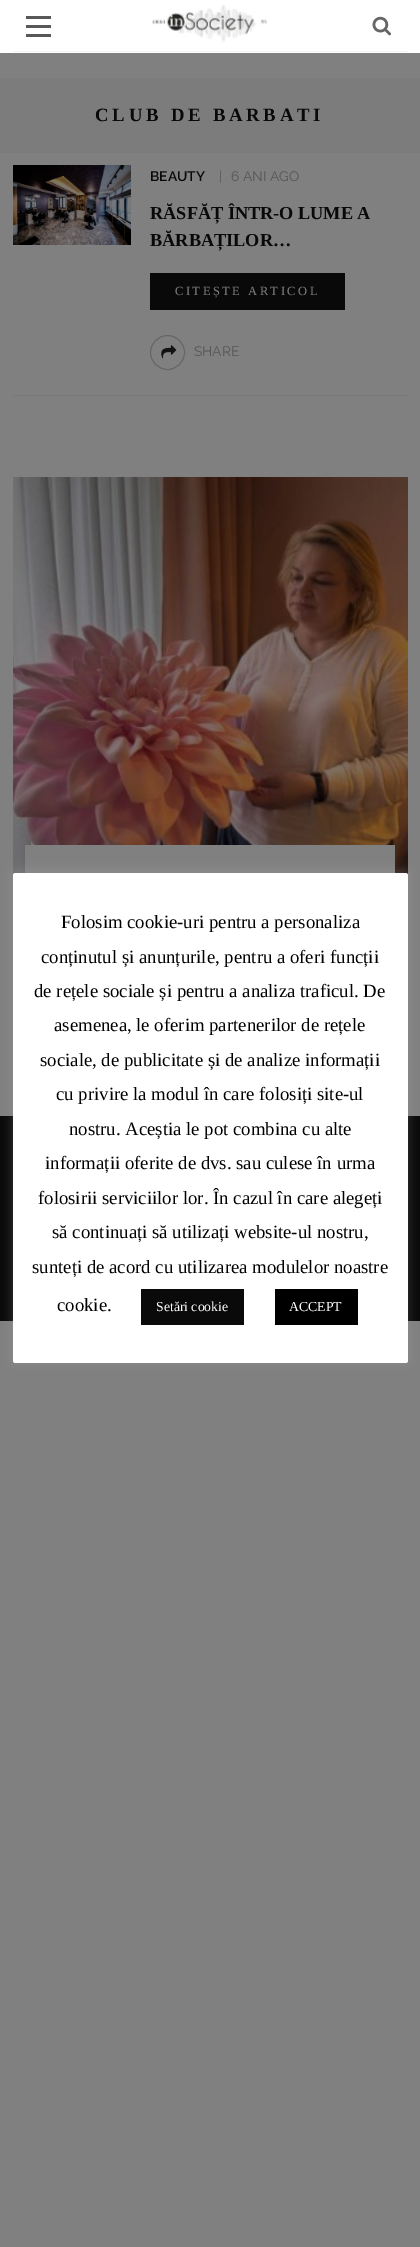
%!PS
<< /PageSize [420 2247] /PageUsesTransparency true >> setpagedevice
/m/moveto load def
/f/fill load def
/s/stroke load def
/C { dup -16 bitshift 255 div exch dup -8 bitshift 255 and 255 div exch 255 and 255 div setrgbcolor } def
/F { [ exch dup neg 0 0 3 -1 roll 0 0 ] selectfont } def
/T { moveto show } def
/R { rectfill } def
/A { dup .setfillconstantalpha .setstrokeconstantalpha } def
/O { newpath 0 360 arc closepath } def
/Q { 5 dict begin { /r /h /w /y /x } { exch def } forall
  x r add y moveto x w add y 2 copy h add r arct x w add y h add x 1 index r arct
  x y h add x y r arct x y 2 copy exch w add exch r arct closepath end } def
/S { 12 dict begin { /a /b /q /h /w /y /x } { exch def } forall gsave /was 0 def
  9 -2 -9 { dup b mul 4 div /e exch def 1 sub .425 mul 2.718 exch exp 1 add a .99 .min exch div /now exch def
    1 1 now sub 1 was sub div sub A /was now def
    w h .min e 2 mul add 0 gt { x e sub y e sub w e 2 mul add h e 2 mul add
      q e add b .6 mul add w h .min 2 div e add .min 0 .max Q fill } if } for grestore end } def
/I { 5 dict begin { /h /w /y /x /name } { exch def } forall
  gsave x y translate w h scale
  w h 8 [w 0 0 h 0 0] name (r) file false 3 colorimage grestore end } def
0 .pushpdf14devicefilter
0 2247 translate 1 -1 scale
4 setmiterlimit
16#808080 C
0 0 420 2247 R
16#FFFFFF C
0 0 420 53 R
16#F2F2F2 C
13 51 395 1 R
16#585858 C
26 25 25 3 R
26 16 25 3 R
26 34 25 3 R
(1.rgb) 152 4 115 39 I
(2.rgb) 372 16 19 20 I
16#7C7C7C C
0 78 420 75 R
/LiberationSerif-Bold 18.75 F
16#090909 C
95 121 m 3.75 0 (CLUB DE BARBATI) ashow
16#797979 C
13 395 395 1 R
(3.rgb) 13 165 118 80 I
/Raleway-SemiBold 13.75 F
16#090909 C
(BEAUTY) 150 181 T
/Raleway-Regular 13.75 F
16#555555 C
(|) 219 181 T
(6 ANI AGO) 231 181 T
/LiberationSerif-Bold 18.25 F
16#090909 C
(RĂSFĂȚ ÎNTR-O LUME A) 150 219 T
(BĂRBAȚILOR…) 150 246 T
150 273 195 37 R
/LiberationSerif-Regular 12.5 F
16#808080 C
175 295 m 2.5 0 (CITEȘTE ARTICOL) ashow
16#666666 C
167.5 352.5 17 O s
(4.rgb) 161 345 16 14 I
/Raleway-Regular 13.75 F
16#555555 C
(SHARE) 194 356 T
(5.rgb) 13 477 395 399 I
16#808080 C
25 845 370 28 R
16#090909 C
0 1116 420 205 R
16#ACABAB C
13 871 395 490 2.5 6 .3 S
16#FFFFFF C
13 873 395 490 2.5 Q f
/LiberationSerif-Regular 18.75 F
16#000000 C
(Folosim cookie-uri pentru a personaliza) 61 928 T
(conținutul și anunțurile, pentru a oferi funcții) 41 963 T
(de rețele sociale și pentru a analiza traficul. De) 34 997 T
(asemenea, le oferim partenerilor de rețele) 54 1031 T
(sociale, de publicitate și de analize informații) 40 1066 T
(cu privire la modul în care folosiți site-ul) 56 1100 T
(nostru. Aceștia le pot combina cu alte) 69 1135 T
(informații oferite de dvs. sau culese în urma) 45 1169 T
(folosirii serviciilor lor. În cazul în care alegeți) 38 1204 T
(să continuați să utilizați website-ul nostru,) 52 1238 T
(sunteți de acord cu utilizarea modulelor noastre) 32 1273 T
(cookie.) 57 1311 T
16#0A0A0A C
141 1289 103 36 R
/LiberationSerif-Regular 13.75 F
16#FFFFFF C
(Setări cookie) 156 1311 T
16#000000 C
275 1289 83 36 R
16#FFFFFF C
(ACCEPT) 289 1311 T
.poppdf14devicefilter showpage
